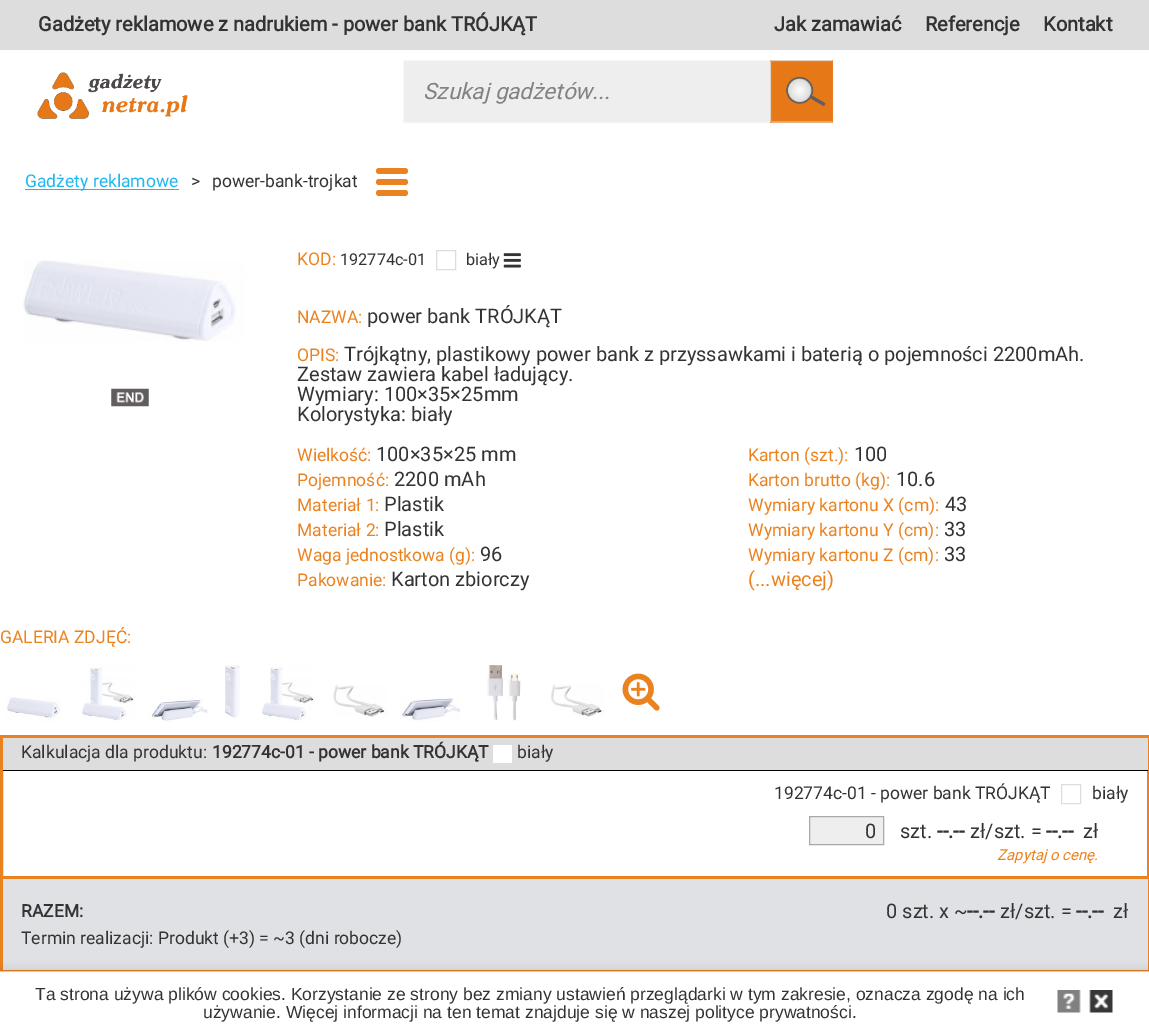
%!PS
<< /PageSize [1149 1032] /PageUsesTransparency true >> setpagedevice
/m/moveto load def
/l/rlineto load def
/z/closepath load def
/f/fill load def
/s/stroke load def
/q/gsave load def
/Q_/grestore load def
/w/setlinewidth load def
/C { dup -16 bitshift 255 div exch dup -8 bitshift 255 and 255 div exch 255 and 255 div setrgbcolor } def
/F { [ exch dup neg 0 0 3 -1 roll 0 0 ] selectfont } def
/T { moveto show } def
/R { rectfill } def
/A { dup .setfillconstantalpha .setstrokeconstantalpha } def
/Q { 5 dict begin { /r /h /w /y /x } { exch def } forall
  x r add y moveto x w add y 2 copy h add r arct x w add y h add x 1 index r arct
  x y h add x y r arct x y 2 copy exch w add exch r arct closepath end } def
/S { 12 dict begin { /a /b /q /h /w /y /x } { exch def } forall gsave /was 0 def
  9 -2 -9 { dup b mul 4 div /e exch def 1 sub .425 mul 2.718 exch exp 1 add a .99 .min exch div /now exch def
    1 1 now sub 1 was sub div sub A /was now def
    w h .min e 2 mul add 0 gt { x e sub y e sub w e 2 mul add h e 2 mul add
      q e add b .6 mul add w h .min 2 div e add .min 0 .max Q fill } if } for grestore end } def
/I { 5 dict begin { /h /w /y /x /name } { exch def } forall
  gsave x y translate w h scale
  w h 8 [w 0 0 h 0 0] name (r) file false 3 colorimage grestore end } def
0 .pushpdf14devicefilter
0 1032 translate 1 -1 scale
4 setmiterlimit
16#FFFFFF C
0 0 1149 1032 R
16#DDDDDD C
0 0 1149 50 R
/Roboto-Bold 20 F
16#333333 C
(Gadżety reklamowe z nadrukiem - power bank TRÓJKĄT) 38 31 T
(Jak zamawiać) 774 31 T
(Referencje) 925 31 T
(Kontakt) 1043 31 T
(1.rgb) 37 72 151 47 I
16#EEEEEE C
404 61 366 61 R
16#F5F5F5 C
403.5 60.5 374 62 rectstroke
/Roboto-Italic 22.5 F
16#838281 C
(Szukaj gadżetów...) 423 99 T
16#EB8220 C
770 60 63 63 R
(2.rgb) 770 60 63 63 I
16#20B8F1 C
25 189 154 1 R
/Roboto-Regular 17.5 F
(Gadżety reklamowe) 25 187 T
16#333333 C
(>) 191 187 T
(power-bank-trojkat) 212 187 T
16#EB8220 C
376 168 32 6 3 Q f
376 179 32 6 3 Q f
376 190 32 6 3 Q f
(3.rgb) 23 260 222 82 I
(4.rgb) 111 388 38 19 I
(KOD:) 297 265 T
/Roboto-Regular 16.25 F
16#333333 C
(192774c-01) 340 265 T
16#DDDDDD C
436.5 250.5 19 19 rectstroke
16#333333 C
(biały) 466 265 T
(5.rgb) 503 253 18 15 I
/Roboto-Regular 17.5 F
16#EB8220 C
(NAZWA:) 297 323 T
/Roboto-Regular 20 F
16#333333 C
(power bank TRÓJKĄT) 367 323 T
/Roboto-Regular 17.5 F
16#EB8220 C
(OPIS:) 297 361 T
/Roboto-Regular 20 F
16#333333 C
(Trójkątny, plastikowy power bank z przyssawkami i baterią o pojemności 2200mAh.) 344 361 T
(Zestaw zawiera kabel ładujący.) 297 381 T
(Wymiary: 100×35×25mm) 297 401 T
(Kolorystyka: biały) 297 421 T
/Roboto-Regular 17.5 F
16#EB8220 C
(Wielkość:) 297 461 T
/Roboto-Regular 20 F
16#333333 C
(100×35×25 mm) 376 461 T
/Roboto-Regular 17.5 F
16#EB8220 C
(Karton \(szt.\):) 748 461 T
/Roboto-Regular 20 F
16#333333 C
(100) 854 461 T
/Roboto-Regular 17.5 F
16#EB8220 C
(Pojemność:) 297 486 T
/Roboto-Regular 20 F
16#333333 C
(2200 mAh) 394 486 T
/Roboto-Regular 17.5 F
16#EB8220 C
(Karton brutto \(kg\):) 748 486 T
/Roboto-Regular 20 F
16#333333 C
(10.6) 896 486 T
/Roboto-Regular 17.5 F
16#EB8220 C
(Materiał 1:) 297 511 T
/Roboto-Regular 20 F
16#333333 C
(Plastik) 384 511 T
/Roboto-Regular 17.5 F
16#EB8220 C
(Wymiary kartonu X \(cm\):) 748 511 T
/Roboto-Regular 20 F
16#333333 C
(43) 945 511 T
/Roboto-Regular 17.5 F
16#EB8220 C
(Materiał 2:) 297 536 T
/Roboto-Regular 20 F
16#333333 C
(Plastik) 384 536 T
/Roboto-Regular 17.5 F
16#EB8220 C
(Wymiary kartonu Y \(cm\):) 748 536 T
/Roboto-Regular 20 F
16#333333 C
(33) 944 536 T
/Roboto-Regular 17.5 F
16#EB8220 C
(Waga jednostkowa \(g\):) 297 561 T
/Roboto-Regular 20 F
16#333333 C
(96) 480 561 T
/Roboto-Regular 17.5 F
16#EB8220 C
(Wymiary kartonu Z \(cm\):) 748 561 T
/Roboto-Regular 20 F
16#333333 C
(33) 944 561 T
/Roboto-Regular 17.5 F
16#EB8220 C
(Pakowanie:) 297 586 T
/Roboto-Regular 20 F
16#333333 C
(Karton zbiorczy) 391 586 T
16#EB8220 C
(\(...więcej\)) 748 586 T
/Roboto-Regular 17.5 F
(GALERIA ZDJĘĆ:) 0 643 T
(6.rgb) 5 697 57 25 I
(7.rgb) 82 664 53 58 I
(8.rgb) 148 698 60 24 I
(9.rgb) 225 665 15 53 I
(7.rgb) 262 664 53 58 I
(10.rgb) 333 685 55 32 I
(11.rgb) 400 697 60 25 I
(12.rgb) 487 665 34 56 I
(13.rgb) 551 684 54 33 I
(14.rgb) 622 673 38 38 I
3 w
1.5 736.5 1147 235 rectstroke
16#DDDDDD C
3 738 1145 32 R
16#000000 C
3 770 1145 1 R
16#333333 C
(Kalkulacja dla produktu:) 21 758 T
/Roboto-Bold 17.5 F
(192774c-01 - power bank TRÓJKĄT) 212 758 T
16#FFFFFF C
493 745 19 18 R
/Roboto-Regular 17.5 F
16#333333 C
(biały) 517 758 T
(192774c-01 - power bank TRÓJKĄT) 774 799 T
16#DDDDDD C
1 w
1061.5 784.5 19 19 rectstroke
16#333333 C
(biały) 1092 799 T
16#EEEEEE C
809.5 816.5 m 74 0 l 0 28 l -74 0 l z q f Q_
16#AAA9A9 C
s
/Roboto-Regular 20 F
16#333333 C
(0) 865 838 T
(szt.) 900 838 T
/Roboto-Bold 20 F
(--.--) 937 838 T
/Roboto-Regular 20 F
(zł/szt. =) 970 838 T
/Roboto-Italic 15 F
16#EB8220 C
(Zapytaj o cenę.) 997 860 T
/Roboto-Bold 20 F
16#333333 C
(--.--) 1046 838 T
/Roboto-Regular 20 F
(zł) 1083 838 T
16#E0E1E4 C
3 879 1145 91 R
16#EB8220 C
3 876 1145 3 R
/Roboto-Bold 17.5 F
16#333333 C
(RAZEM:) 21 917 T
/Roboto-Regular 20 F
(0 szt. x ~) 886 918 T
/Roboto-Bold 20 F
(--.--) 967 918 T
/Roboto-Regular 20 F
(zł/szt. =) 1000 918 T
/Roboto-Bold 20 F
(--.--) 1076 918 T
/Roboto-Regular 20 F
(zł) 1113 918 T
/Roboto-Regular 17.5 F
(Termin realizacji: Produkt \(+3\) = ~3 \(dni robocze\)) 21 944 T
16#000000 C
0 971 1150 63 0 5 .15 S
16#FFFFFF C
0 972 1149 60 R
16#CCCCCC C
0 971 1149 1 R
/LiberationSans-Regular 17.5 F
16#333333 C
(Ta strona używa plików cookies. Korzystanie ze strony bez zmiany ustawień przeglądarki w tym zakresie, oznacza zgodę na ich) 35 1000 T
(używanie. Więcej informacji na ten temat znajduje się w naszej polityce prywatności.) 203 1018 T
(15.rgb) 1057 990 24 23 I
(16.rgb) 1089 990 24 23 I
.poppdf14devicefilter showpage
